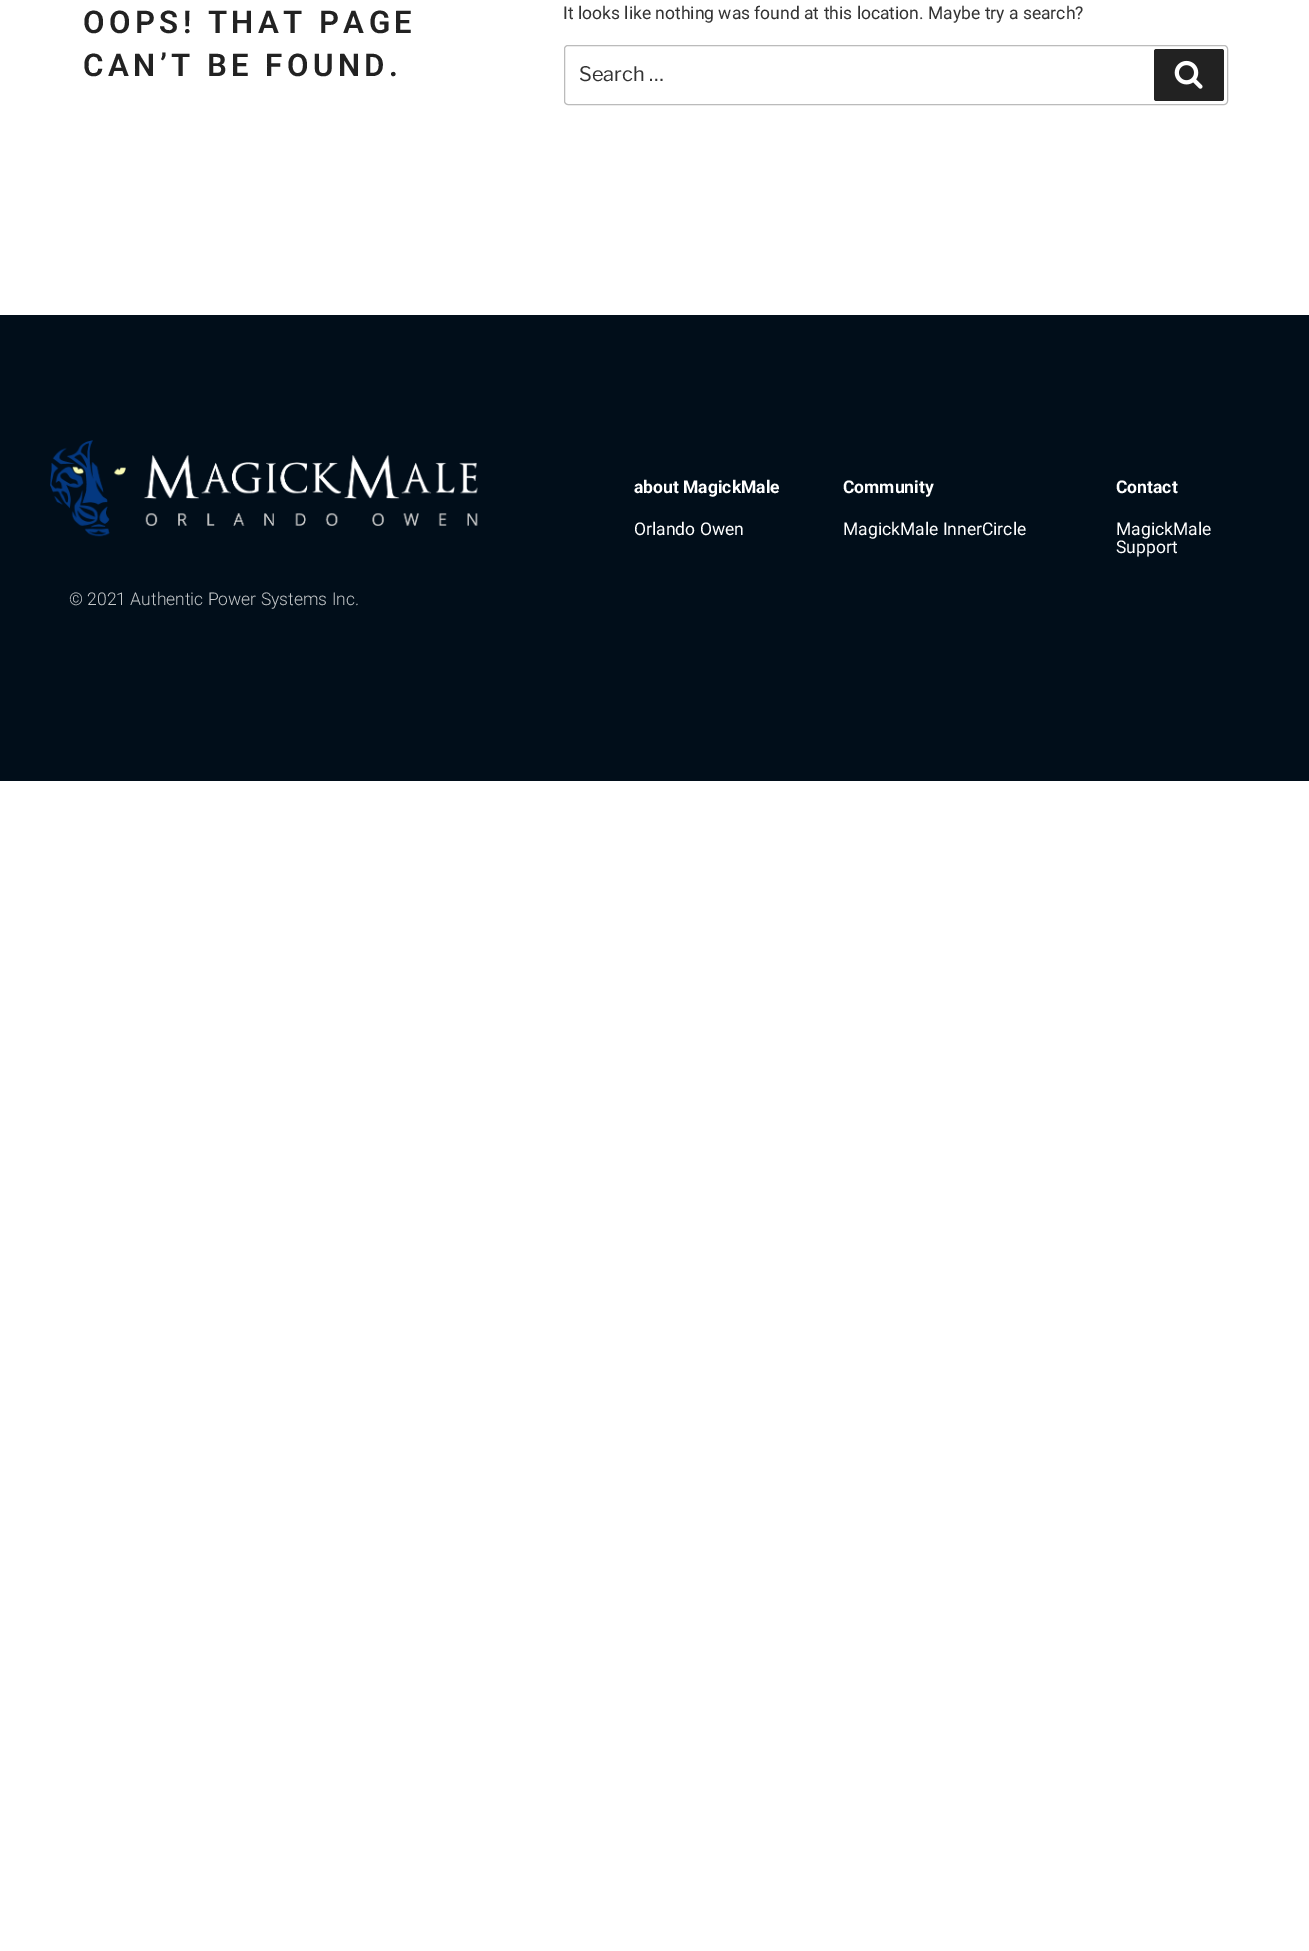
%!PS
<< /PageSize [1309 1951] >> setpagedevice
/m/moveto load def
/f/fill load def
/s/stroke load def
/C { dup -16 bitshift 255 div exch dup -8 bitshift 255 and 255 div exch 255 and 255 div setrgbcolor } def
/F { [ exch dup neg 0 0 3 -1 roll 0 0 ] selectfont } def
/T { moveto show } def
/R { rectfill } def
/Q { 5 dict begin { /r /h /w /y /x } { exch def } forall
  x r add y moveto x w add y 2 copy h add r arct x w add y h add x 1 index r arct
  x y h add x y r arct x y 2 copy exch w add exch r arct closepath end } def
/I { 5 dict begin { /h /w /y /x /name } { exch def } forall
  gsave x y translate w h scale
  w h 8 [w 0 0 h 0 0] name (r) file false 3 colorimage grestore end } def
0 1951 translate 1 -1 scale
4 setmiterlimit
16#FFFFFF C
0 0 1309 1951 R
/Roboto-SemiBold 31.25 F
16#222222 C
83 33 m 4.4 0 (OOPS! THAT PAGE) ashow
83 76 m 4.4 0 (CAN’T BE FOUND.) ashow
/Roboto-Regular 17.5 F
16#333333 C
(It looks like nothing was found at this location. Maybe try a search?) 563 19 T
16#BBBBBB C
564.5 45.5 663 59 3.5 Q s
/LibreFranklin-Thin 20 F
16#333333 C
(Search …) 579 81 T
16#222222 C
1154 49 70 52 2.5 Q f
(1.rgb) 1174 60 29 29 I
16#010E1A C
0 315 1309 466 R
/Roboto-Bold 17.5 F
16#FFFFFF C
(about MagickMale) 634 493 T
/Roboto-Regular 17.5 F
(Orlando Owen) 634 535 T
/Roboto-Bold 17.5 F
(Community) 843 493 T
/Roboto-Regular 17.5 F
(MagickMale InnerCircle) 843 535 T
/Roboto-Bold 17.5 F
(Contact) 1116 493 T
/Roboto-Regular 17.5 F
(MagickMale) 1116 535 T
(Support) 1116 553 T
(2.rgb) 50 440 428 97 I
/Roboto-Light 17.5 F
16#C5C8CA C
(© 2021 Authentic Power Systems Inc.) 69 605 T
showpage
